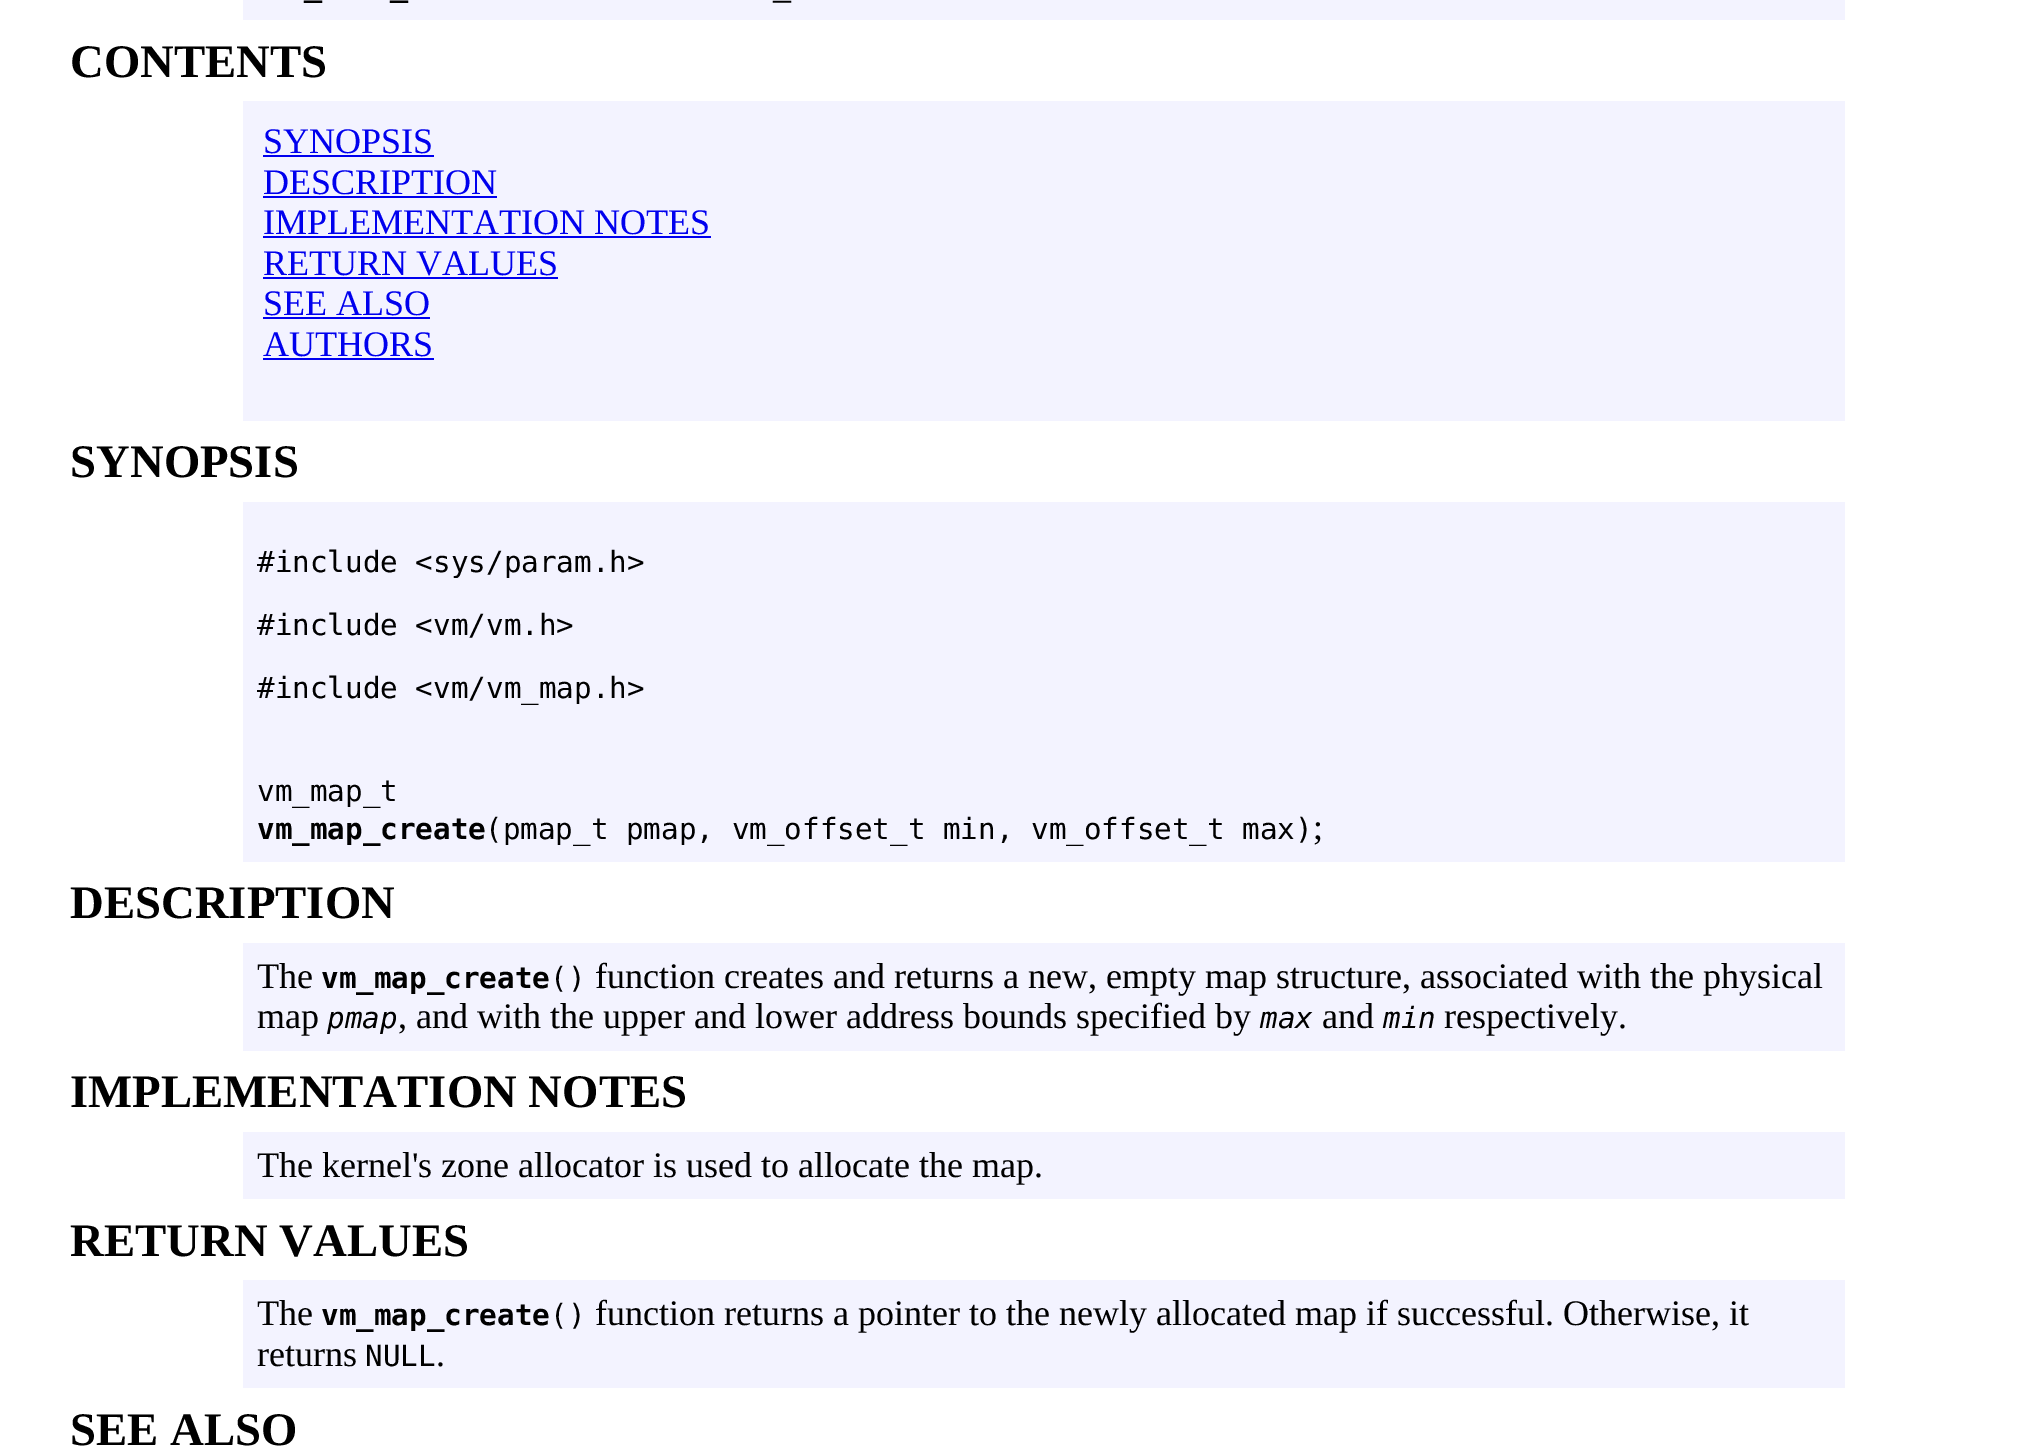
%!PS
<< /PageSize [2035 1450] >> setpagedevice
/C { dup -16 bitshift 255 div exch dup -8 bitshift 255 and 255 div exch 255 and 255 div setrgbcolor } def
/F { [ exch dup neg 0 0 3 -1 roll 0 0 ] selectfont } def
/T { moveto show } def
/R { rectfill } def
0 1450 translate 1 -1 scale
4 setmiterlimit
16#FFFFFF C
0 0 2035 1450 R
16#F3F3FF C
243 0 1602 20 R
/LiberationSerif-Bold 36 F
16#000000 C
(_) 304 -2 T
(_) 390 -2 T
/LiberationSerif-Regular 36 F
(_) 773 -2 T
/LiberationSerif-Bold 46.75 F
(CONTENTS) 70 77 T
16#F3F3FF C
243 101 1602 320 R
/LiberationSerif-Regular 36 F
16#0000EE C
(SYNOPSIS) 263 153 T
263 155 171 2 R
(DESCRIPTION) 263 194 T
263 196 234 2 R
(IMPLEMENTATION NOTES) 263 234 T
263 236 448 2 R
(RETURN VALUES) 263 275 T
263 277 295 2 R
(SEE ALSO) 263 315 T
263 317 167 2 R
(AUTHORS) 263 356 T
263 358 171 2 R
/LiberationSerif-Bold 46.75 F
16#000000 C
(SYNOPSIS) 70 477 T
16#F3F3FF C
243 502 1602 360 R
/DejaVuSansMono-Regular 29.25 F
16#000000 C
(#include <sys/param.h>) 257 572 T
(#include <vm/vm.h>) 257 635 T
(#include <vm/vm_map.h>) 257 698 T
(vm_map_t) 257 801 T
/DejaVuSansMono-Bold 29.25 F
(vm_map_create) 257 839 T
/DejaVuSansMono-Regular 29.25 F
(\(pmap_t pmap, vm_offset_t min, vm_offset_t max\)) 485 839 T
/LiberationSerif-Regular 36 F
(;) 1313 839 T
/LiberationSerif-Bold 46.75 F
(DESCRIPTION) 70 918 T
16#F3F3FF C
243 943 1602 108 R
/LiberationSerif-Regular 36 F
16#000000 C
(The) 257 988 T
/DejaVuSansMono-Bold 29.25 F
(vm_map_create) 321 988 T
/DejaVuSansMono-Regular 29.25 F
(\(\)) 550 988 T
/LiberationSerif-Regular 36 F
(function creates and returns a new, empty map structure, associated with the physical) 595 988 T
(map) 257 1028 T
/DejaVuSansMono-Italic 29.25 F
(pmap) 327 1028 T
/LiberationSerif-Regular 36 F
(, and with the upper and lower address bounds specified by) 398 1028 T
/DejaVuSansMono-Italic 29.25 F
(max) 1260 1028 T
/LiberationSerif-Regular 36 F
(and) 1322 1028 T
/DejaVuSansMono-Italic 29.25 F
(min) 1383 1028 T
/LiberationSerif-Regular 36 F
(respectively.) 1444 1028 T
/LiberationSerif-Bold 46.75 F
(IMPLEMENTATION NOTES) 70 1107 T
16#F3F3FF C
243 1132 1602 67 R
/LiberationSerif-Regular 36 F
16#000000 C
(The kernel's zone allocator is used to allocate the map.) 257 1177 T
/LiberationSerif-Bold 46.75 F
(RETURN VALUES) 70 1256 T
16#F3F3FF C
243 1280 1602 108 R
/LiberationSerif-Regular 36 F
16#000000 C
(The) 257 1325 T
/DejaVuSansMono-Bold 29.25 F
(vm_map_create) 321 1325 T
/DejaVuSansMono-Regular 29.25 F
(\(\)) 550 1325 T
/LiberationSerif-Regular 36 F
(function returns a pointer to the newly allocated map if successful. Otherwise, it) 595 1325 T
(returns) 257 1366 T
/DejaVuSansMono-Regular 29.25 F
(NULL) 365 1366 T
/LiberationSerif-Regular 36 F
(.) 436 1366 T
/LiberationSerif-Bold 46.75 F
(SEE ALSO) 70 1445 T
showpage
